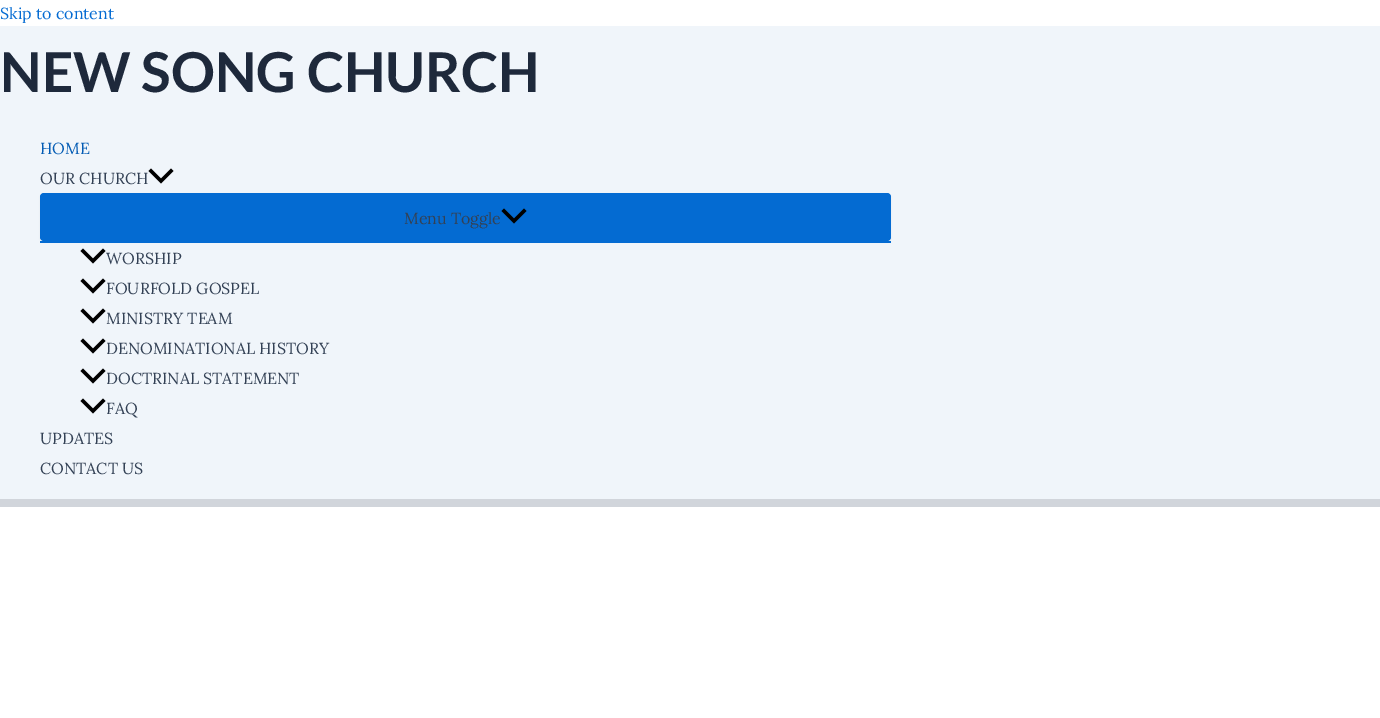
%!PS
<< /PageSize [1380 718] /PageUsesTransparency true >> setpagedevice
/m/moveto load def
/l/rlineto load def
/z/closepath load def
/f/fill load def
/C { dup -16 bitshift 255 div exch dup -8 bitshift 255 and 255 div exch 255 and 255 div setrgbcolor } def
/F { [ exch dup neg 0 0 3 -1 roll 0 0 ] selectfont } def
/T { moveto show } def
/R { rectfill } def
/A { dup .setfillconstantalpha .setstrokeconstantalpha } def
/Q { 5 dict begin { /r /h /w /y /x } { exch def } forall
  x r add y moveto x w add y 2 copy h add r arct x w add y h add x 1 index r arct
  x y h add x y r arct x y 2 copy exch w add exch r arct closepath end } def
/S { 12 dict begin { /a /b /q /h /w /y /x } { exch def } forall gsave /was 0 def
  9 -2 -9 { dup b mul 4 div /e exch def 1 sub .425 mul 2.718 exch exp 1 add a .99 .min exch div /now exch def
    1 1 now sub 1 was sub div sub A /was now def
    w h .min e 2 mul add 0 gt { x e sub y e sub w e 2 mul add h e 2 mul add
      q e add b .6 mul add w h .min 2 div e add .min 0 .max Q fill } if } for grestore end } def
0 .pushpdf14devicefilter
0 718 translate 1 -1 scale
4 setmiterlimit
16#FFFFFF C
0 0 1380 718 R
/Lora-Regular 16 F
16#046BD2 C
(Skip to content) 0 19 T
16#F0F5FA C
0 26 1380 473 R
16#D1D5DB C
0 499 1380 8 R
/Lato-Bold 55 F
16#1E293B C
(NEW SONG CHURCH) 0 92 T
/Lora-Regular 16 F
16#045CB4 C
(HOME) 40 154 T
16#334155 C
(OUR CHURCH) 40 184 T
16#000000 C
148.5 171 m 12.5 12.5 l 12.5 -12.5 l -2.5 -2.5 l -10 10 l -10 -10 l z f
40 194 851 48 4 1 .05 S
16#046BD2 C
40 193 851 48 4 Q f
16#334155 C
(Menu Toggle) 404 224 T
16#000000 C
501.5 211 m 12.5 12.5 l 12.5 -12.5 l -2.5 -2.5 l -10 10 l -10 -10 l z f
16#046BD2 C
40 241 851 2 R
16#000000 C
80.5 251 m 12.5 12.5 l 12.5 -12.5 l -2.5 -2.5 l -10 10 l -10 -10 l z 80.5 281 m 12.5 12.5 l 12.5 -12.5 l -2.5 -2.5 l -10 10 l -10 -10 l z f
16#334155 C
(WORSHIP) 106 264 T
(FOURFOLD GOSPEL) 106 294 T
16#000000 C
80.5 311 m 12.5 12.5 l 12.5 -12.5 l -2.5 -2.5 l -10 10 l -10 -10 l z 80.5 341 m 12.5 12.5 l 12.5 -12.5 l -2.5 -2.5 l -10 10 l -10 -10 l z f
16#334155 C
(MINISTRY TEAM) 106 324 T
(DENOMINATIONAL HISTORY) 106 354 T
16#000000 C
80.5 371 m 12.5 12.5 l 12.5 -12.5 l -2.5 -2.5 l -10 10 l -10 -10 l z 80.5 401 m 12.5 12.5 l 12.5 -12.5 l -2.5 -2.5 l -10 10 l -10 -10 l z f
16#334155 C
(DOCTRINAL STATEMENT) 106 384 T
(FAQ) 106 414 T
(UPDATES) 40 444 T
(CONTACT US) 40 474 T
.poppdf14devicefilter showpage
